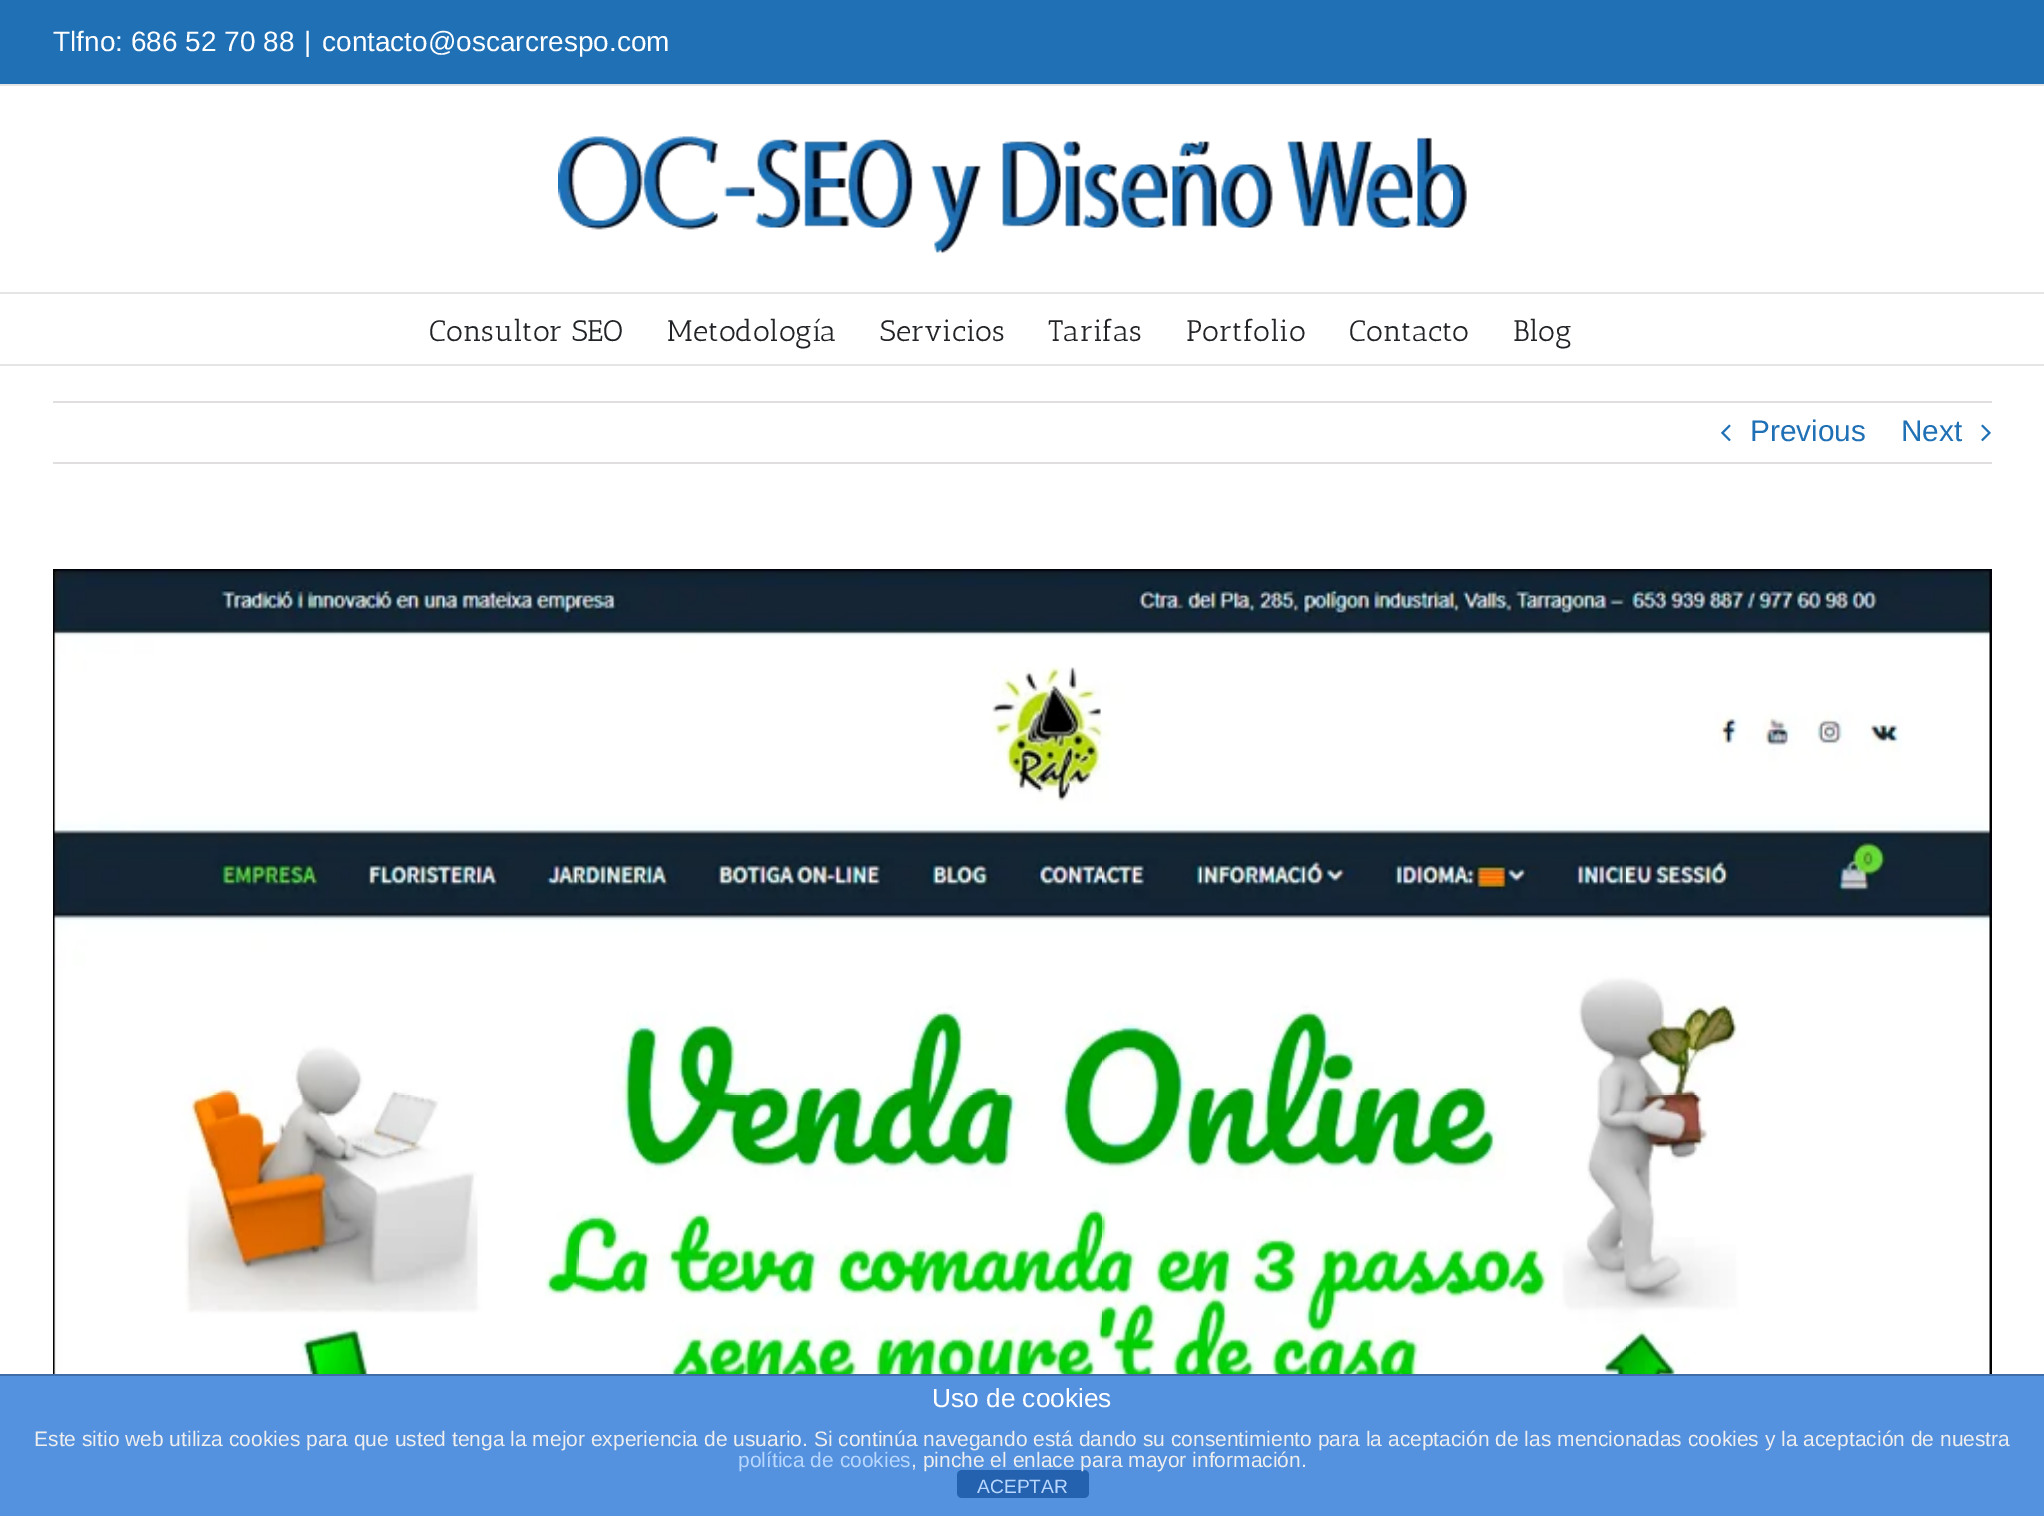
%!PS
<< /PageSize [2044 1516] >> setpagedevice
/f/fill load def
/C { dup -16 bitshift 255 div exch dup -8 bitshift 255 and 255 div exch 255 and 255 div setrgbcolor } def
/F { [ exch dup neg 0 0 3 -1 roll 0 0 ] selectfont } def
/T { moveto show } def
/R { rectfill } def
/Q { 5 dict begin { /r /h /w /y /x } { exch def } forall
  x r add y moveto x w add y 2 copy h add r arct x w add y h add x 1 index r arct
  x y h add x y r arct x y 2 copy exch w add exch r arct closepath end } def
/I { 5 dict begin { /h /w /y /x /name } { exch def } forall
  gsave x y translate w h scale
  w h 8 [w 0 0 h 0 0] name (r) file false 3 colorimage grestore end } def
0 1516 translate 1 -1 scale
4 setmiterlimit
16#FFFFFF C
0 0 2044 1516 R
16#2070B5 C
0 0 2044 84 R
16#E5E5E5 C
0 84 2044 2 R
/LiberationSans-Regular 28 F
16#FFFFFF C
(Tlfno: 686 52 70 88) 53 51 T
(|) 304 51 T
(contacto@oscarcrespo.com) 322 51 T
16#E5E5E5 C
0 292 2044 2 R
(1.rgb) 558 136 909 118 I
0 364 2044 2 R
/AnticSlab-Regular 29.75 F
16#212326 C
(Consultor SEO) 429 341 T
(Metodología) 667 341 T
(Servicios) 880 341 T
(Tarifas) 1048 341 T
(Portfolio) 1186 341 T
(Contacto) 1349 341 T
(Blog) 1513 341 T
16#E0DEDE C
53 401 1939 2 R
53 462 1939 2 R
(2.rgb) 1721 424 10 18 I
/LiberationSans-Regular 29.75 F
16#2070B5 C
(Previous) 1750 441 T
(Next) 1901 441 T
(3.rgb) 1981 424 10 18 I
(4.rgb) 53 569 1939 805 I
16#5492E0 C
0 1376 2044 140 R
16#3F6DA7 C
0 1374 2044 2 R
/LiberationSans-Regular 26.25 F
16#FFFFFF C
(Uso de cookies) 932 1407 T
/LiberationSans-Regular 21 F
16#EEEEEE C
(Este sitio web utiliza cookies para que usted tenga la mejor experiencia de usuario. Si continúa navegando está dando su consentimiento para la aceptación de las mencionadas cookies y la aceptación de nuestra) 34 1446 T
16#B7D7FF C
(política de cookies) 738 1467 T
16#2462B0 C
957 1470 132 28 5 Q f
16#EEEEEE C
(, pinche el enlace para mayor información.) 911 1467 T
/LiberationSans-Regular 19.25 F
16#B7D7FF C
(ACEPTAR) 977 1493 T
showpage
